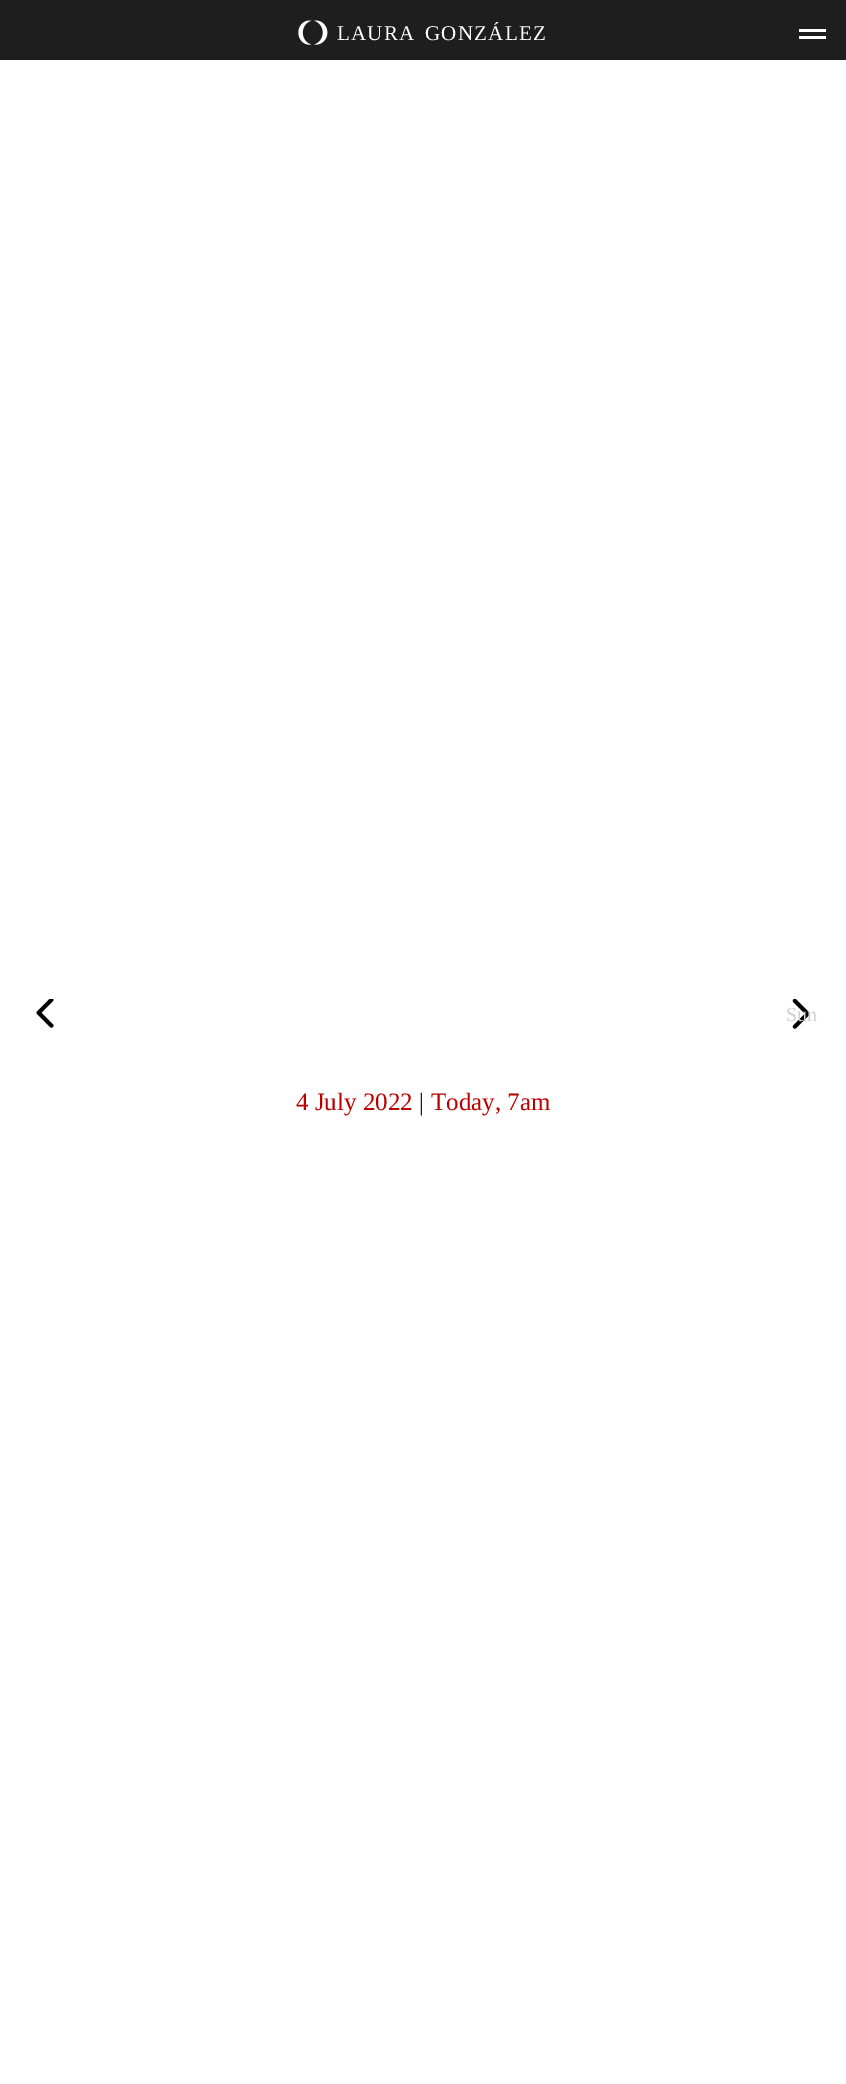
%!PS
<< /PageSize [846 2084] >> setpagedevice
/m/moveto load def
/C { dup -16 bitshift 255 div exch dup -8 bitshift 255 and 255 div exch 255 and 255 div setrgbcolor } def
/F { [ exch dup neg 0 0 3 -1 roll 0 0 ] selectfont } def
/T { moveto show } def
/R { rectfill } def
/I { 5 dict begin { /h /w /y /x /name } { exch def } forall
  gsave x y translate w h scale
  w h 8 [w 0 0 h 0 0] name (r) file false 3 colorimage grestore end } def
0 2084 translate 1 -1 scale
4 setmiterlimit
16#FFFFFF C
0 0 846 2084 R
16#1E1E1E C
0 0 846 60 R
(1.rgb) 298 20 30 25 I
/LiberationSerif-Regular 21 F
16#FFFFFF C
337 40 m 1.25 0 (LAURA) ashow
425 40 m 1.25 0 (GONZÁLEZ) ashow
799 29 27 3 R
799 36 27 3 R
(2.rgb) 36 999 18 29 I
(3.rgb) 792 999 18 30 I
/LiberationSerif-Regular 20 F
16#CECECE C
(Sun) 786 1021 T
/LiberationSerif-Regular 25 F
16#BC0000 C
(4 July 2022) 296 1110 T
16#1E1E1E C
(|) 419 1110 T
16#BC0000 C
(Today, 7am) 431 1110 T
showpage
